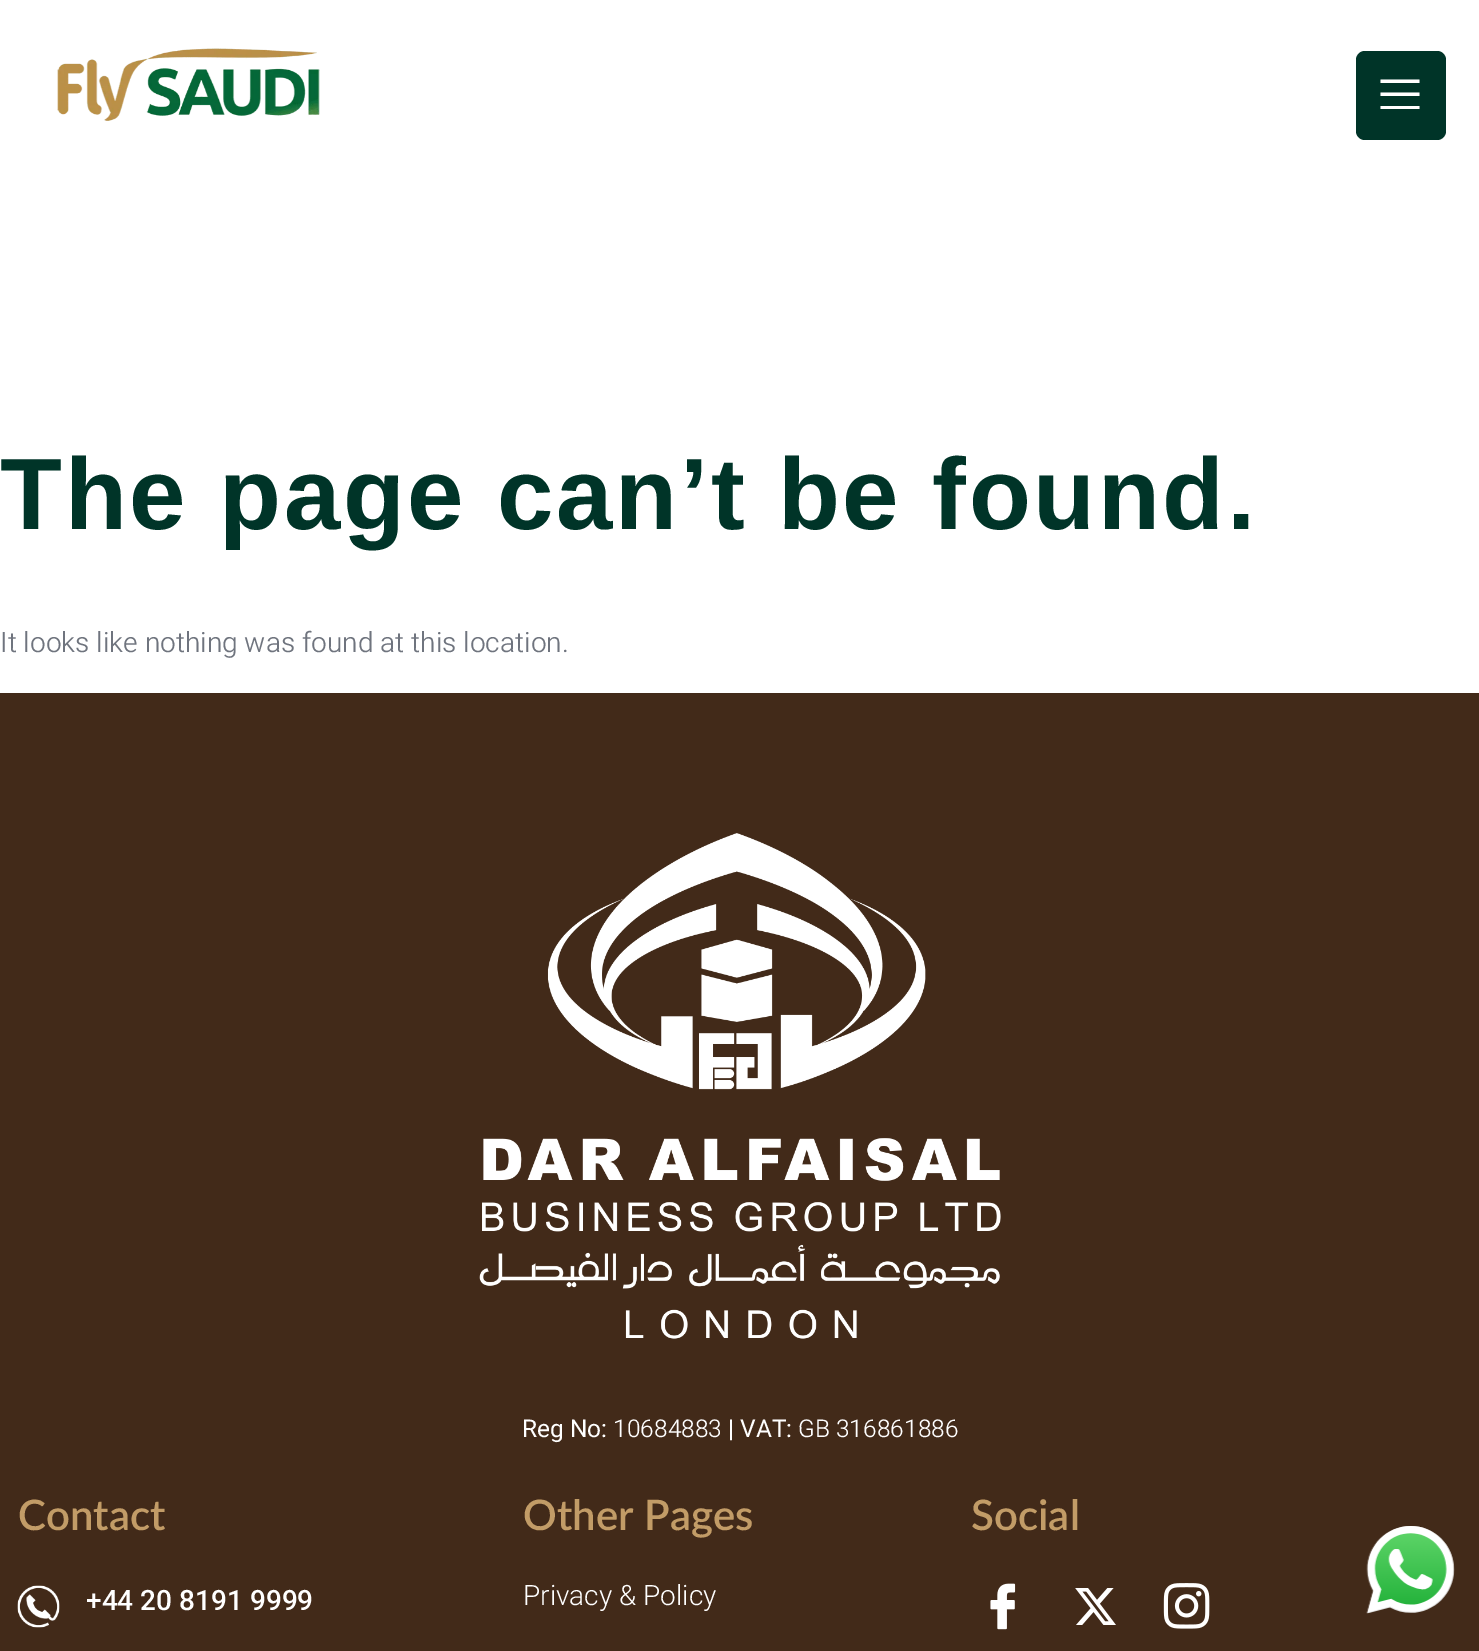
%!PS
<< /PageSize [1479 1651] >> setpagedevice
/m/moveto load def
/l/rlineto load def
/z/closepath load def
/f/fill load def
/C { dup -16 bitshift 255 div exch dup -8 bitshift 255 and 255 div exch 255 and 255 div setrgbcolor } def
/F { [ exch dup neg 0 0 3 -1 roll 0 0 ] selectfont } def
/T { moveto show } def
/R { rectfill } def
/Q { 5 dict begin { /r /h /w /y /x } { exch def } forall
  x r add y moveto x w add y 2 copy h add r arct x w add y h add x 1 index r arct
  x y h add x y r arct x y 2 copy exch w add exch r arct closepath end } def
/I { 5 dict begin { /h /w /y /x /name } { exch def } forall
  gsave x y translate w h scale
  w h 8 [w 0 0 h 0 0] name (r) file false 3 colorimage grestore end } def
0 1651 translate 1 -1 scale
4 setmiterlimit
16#FFFFFF C
0 0 1479 1651 R
(1.rgb) 57 48 263 73 I
16#003428 C
1356 51 90 89 9 Q f
16#FFFFFF C
1380.5 79.5 m 0 3.5 l 39 0 l 0 -3.5 l z 1380.5 92.5 m 0 3.5 l 39 0 l 0 -3.5 l z 1380.5 106 m 0 3 l 39 0 l 0 -3 l z f
/LiberationSans-Bold 101.5 F
16#003428 C
0 529 m 2.6 0 (The page can’t be found.) ashow
/Heebo-Light 28 F
16#6F747E C
(It looks like nothing was found at this location.) 0 652 T
16#422A19 C
0 693 1479 958 R
(2.rgb) 479 833 522 506 I
/Heebo-Regular 24.5 F
16#FFFFFF C
(Reg No:) 522 1437 T
/Heebo-Light 24.5 F
(10684883) 613 1437 T
/Heebo-Regular 24.5 F
(| VAT:) 728 1437 T
/Heebo-Light 24.5 F
(GB 316861886) 798 1437 T
/Lato-SemiBold 42 F
16#C29C67 C
(Contact) 18 1530 T
(3.rgb) 17 1585 43 43 I
/Roboto-Medium 28 F
16#FFFFFF C
(+44 20 8191 9999) 86 1610 T
/Lato-SemiBold 42 F
16#C29C67 C
(Other Pages) 523 1530 T
/Roboto-Light 28 F
16#FFFFFF C
(Privacy & Policy) 523 1605 T
/Lato-SemiBold 42 F
16#C29C67 C
(Social) 971 1530 T
(4.rgb) 990 1583 26 47 I
(5.rgb) 1075 1588 41 37 I
(6.rgb) 1163 1583 47 46 I
(7.rgb) 1366 1526 89 88 I
showpage
